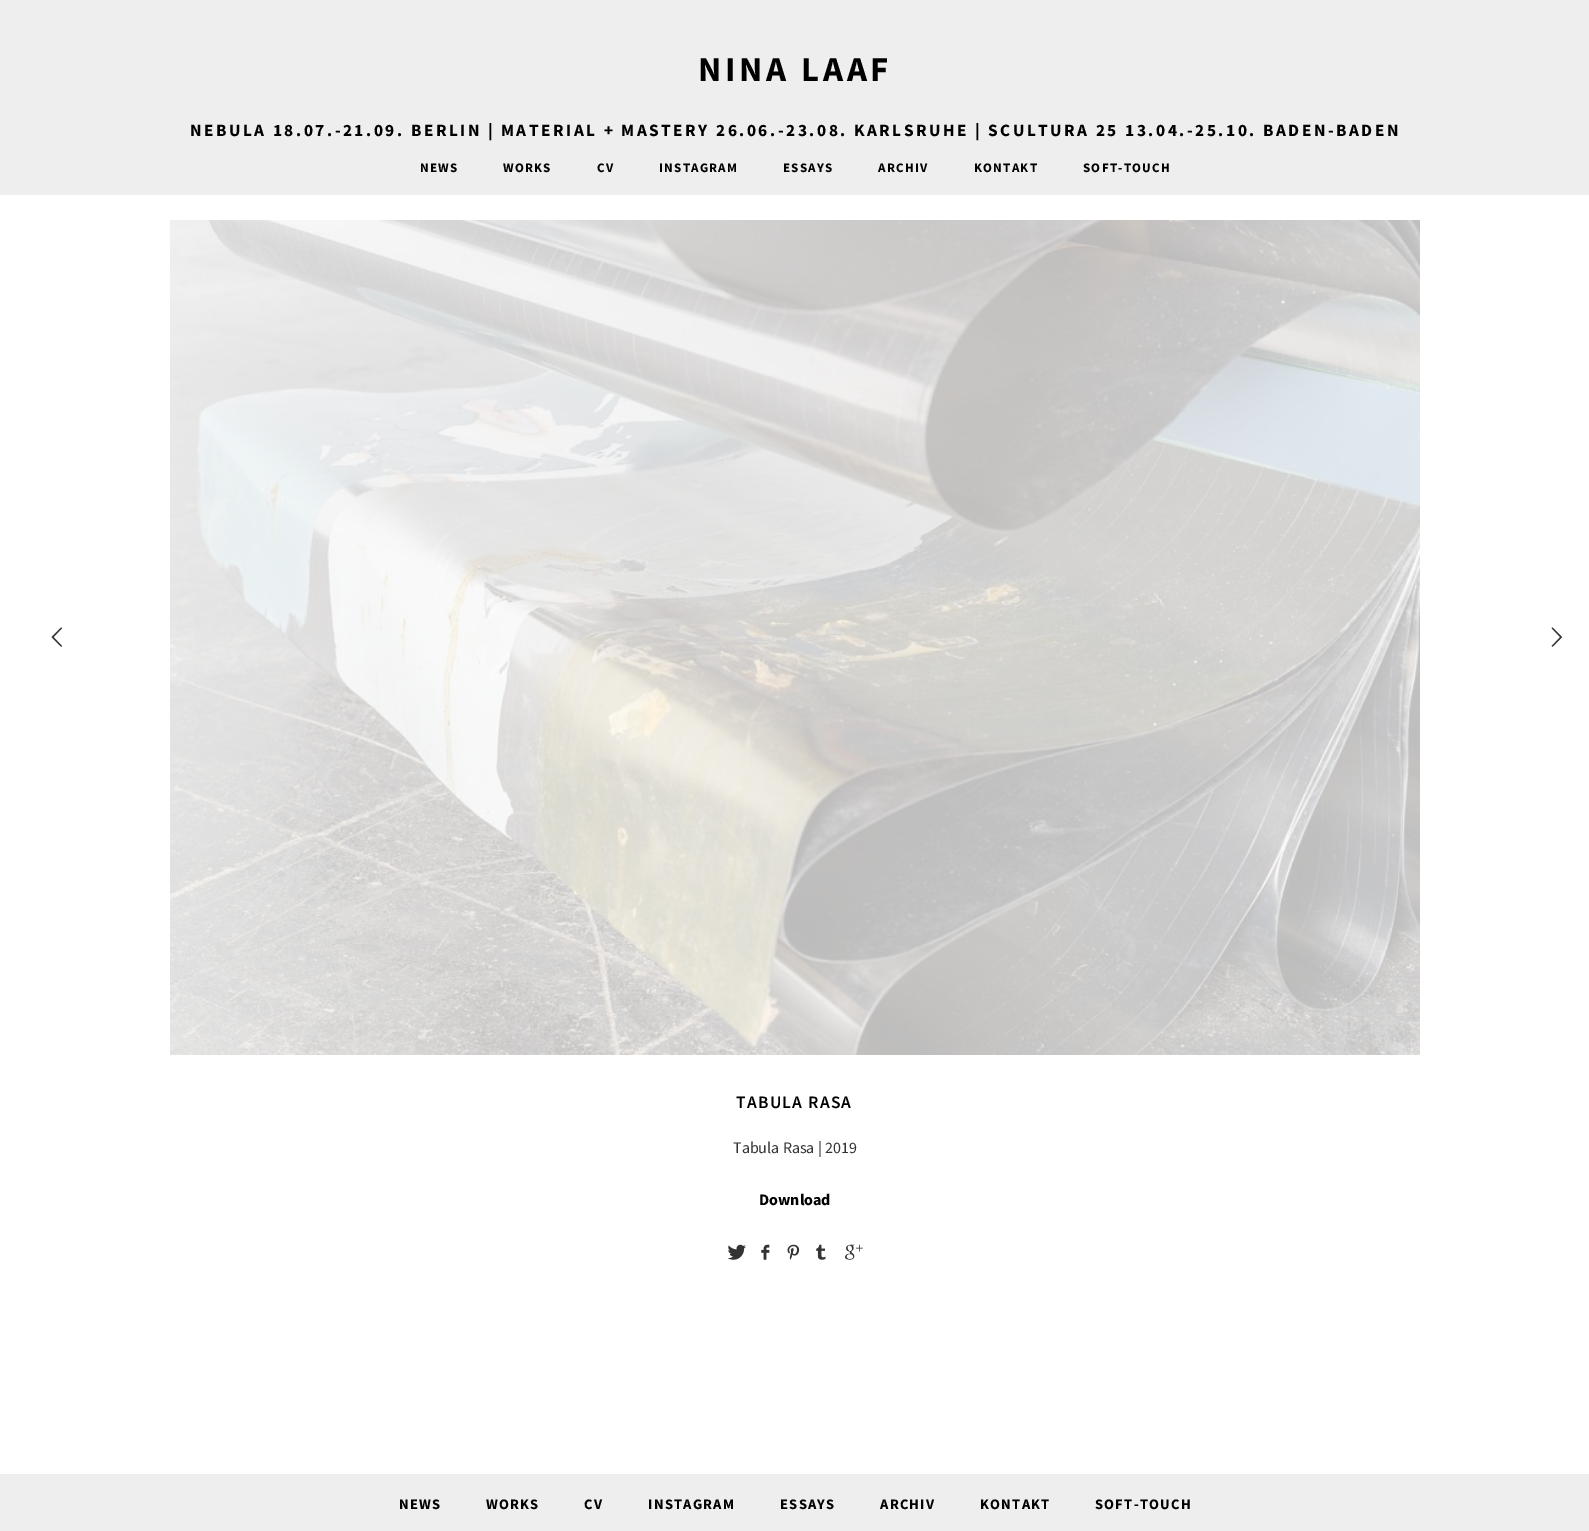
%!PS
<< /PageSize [1589 1531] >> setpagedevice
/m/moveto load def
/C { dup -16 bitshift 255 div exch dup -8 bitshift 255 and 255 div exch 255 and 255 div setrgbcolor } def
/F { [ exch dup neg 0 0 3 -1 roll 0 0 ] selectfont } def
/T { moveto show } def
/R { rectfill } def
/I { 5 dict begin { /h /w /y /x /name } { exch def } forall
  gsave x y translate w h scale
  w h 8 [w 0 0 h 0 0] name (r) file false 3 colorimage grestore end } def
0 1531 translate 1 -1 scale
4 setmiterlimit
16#FFFFFF C
0 0 1589 1531 R
16#EEEEEE C
0 0 1589 195 R
/SourceSansPro-Bold 35 F
16#000000 C
698 81 m 3.75 0 (NINA LAAF) ashow
/SourceSansPro-Bold 17.28 F
190 136 m 2.5 0 (NEBULA 18.07.-21.09. BERLIN | MATERIAL + MASTERY 26.06.-23.08. KARLSRUHE | SCULTURA 25 13.04.-25.10. BADEN-BADEN) ashow
/SourceSansPro-Bold 13 F
420 172 m 1.25 0 (NEWS) ashow
503 172 m 1.25 0 (WORKS) ashow
597 172 m 1.25 0 (CV) ashow
659 172 m 1.25 0 (INSTAGRAM) ashow
783 172 m 1.25 0 (ESSAYS) ashow
878 172 m 1.25 0 (ARCHIV) ashow
974 172 m 1.25 0 (KONTAKT) ashow
1083 172 m 1.25 0 (SOFT-TOUCH) ashow
(1.rgb) 51 627 11 20 I
(2.rgb) 170 220 1250 835 I
(3.rgb) 1551 627 11 20 I
/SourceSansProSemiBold-SemiBold 17.5 F
736 1108 m 1.25 0 (TABULA RASA) ashow
/SourceSansPro-Regular 16 F
16#333333 C
(Tabula Rasa | 2019) 733 1153 T
/SourceSansPro-Bold 16 F
16#000000 C
(Download) 759 1205 T
(4.rgb) 727 1244 19 16 I
(5.rgb) 761 1244 9 16 I
(6.rgb) 787 1244 13 16 I
(7.rgb) 816 1244 10 16 I
(8.rgb) 845 1244 18 16 I
16#EEEEEE C
0 1474 1589 57 R
/SourceSansPro-Bold 14.5 F
16#000000 C
399 1509 m 1.25 0 (NEWS) ashow
486 1509 m 1.25 0 (WORKS) ashow
584 1509 m 1.25 0 (CV) ashow
648 1509 m 1.25 0 (INSTAGRAM) ashow
780 1509 m 1.25 0 (ESSAYS) ashow
880 1509 m 1.25 0 (ARCHIV) ashow
980 1509 m 1.25 0 (KONTAKT) ashow
1095 1509 m 1.25 0 (SOFT-TOUCH) ashow
showpage
